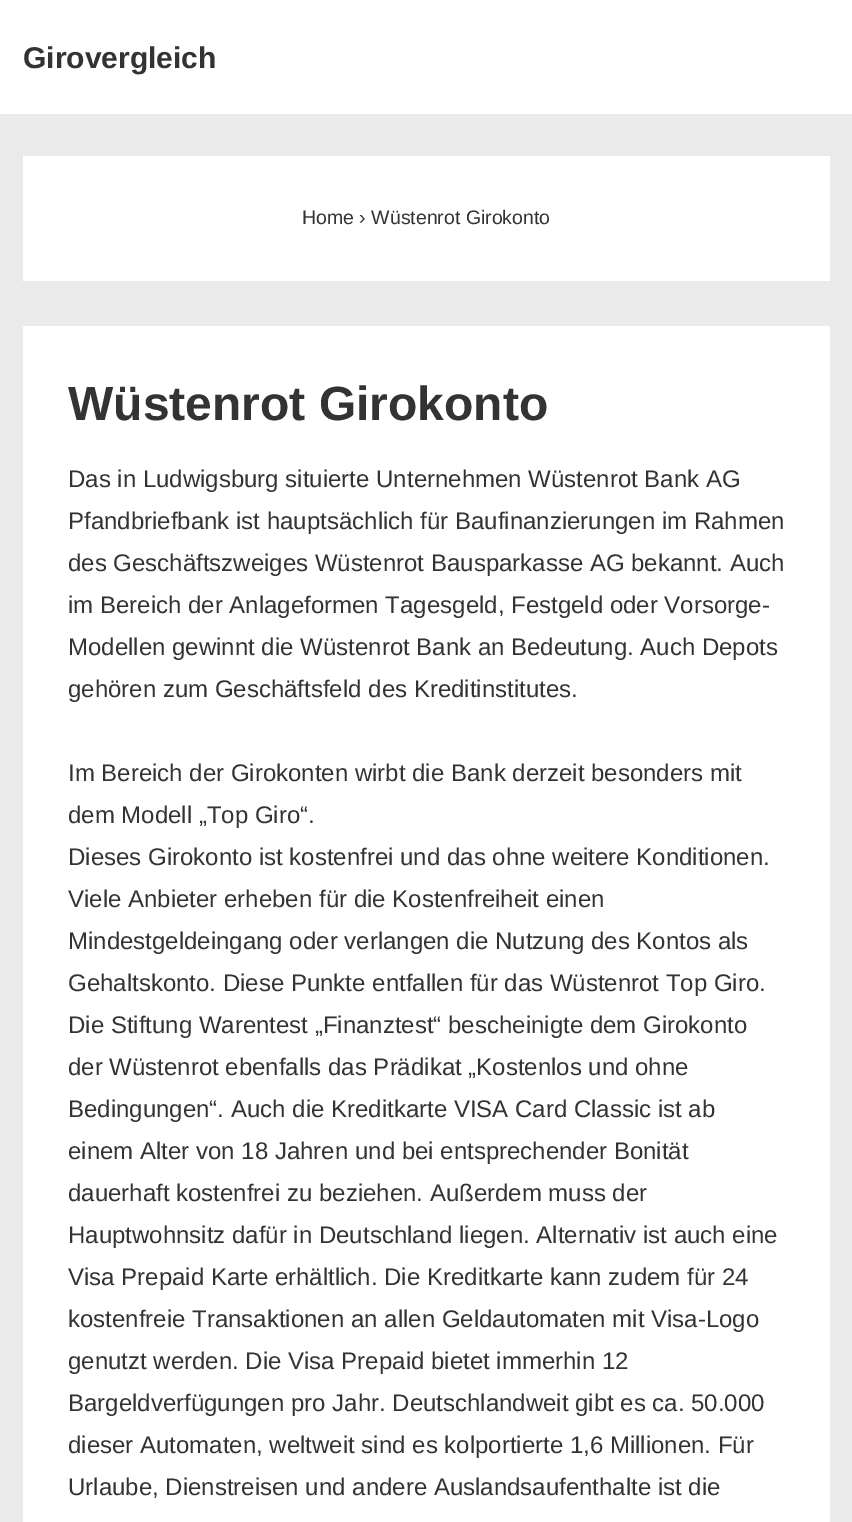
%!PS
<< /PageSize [852 1522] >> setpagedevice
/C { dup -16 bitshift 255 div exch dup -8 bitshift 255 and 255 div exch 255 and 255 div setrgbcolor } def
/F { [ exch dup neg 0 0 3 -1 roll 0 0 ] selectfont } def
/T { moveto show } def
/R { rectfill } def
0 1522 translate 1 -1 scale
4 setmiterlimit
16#EAEAEA C
0 0 852 1522 R
16#FFFFFF C
0 0 852 114 R
/LiberationSans-Bold 30 F
16#333333 C
(Girovergleich) 23 68 T
16#FFFFFF C
23 156 807 125 R
/LiberationSans-Regular 19.5 F
16#333333 C
(Home › Wüstenrot Girokonto) 302 224 T
16#FFFFFF C
23 326 807 1196 R
/LiberationSans-Bold 48 F
16#333333 C
(Wüstenrot Girokonto) 68 420 T
/LiberationSans-Regular 24 F
(Das in Ludwigsburg situierte Unternehmen Wüstenrot Bank AG) 68 487 T
(Pfandbriefbank ist hauptsächlich für Baufinanzierungen im Rahmen) 68 529 T
(des Geschäftszweiges Wüstenrot Bausparkasse AG bekannt. Auch) 68 571 T
(im Bereich der Anlageformen Tagesgeld, Festgeld oder Vorsorge-) 68 613 T
(Modellen gewinnt die Wüstenrot Bank an Bedeutung. Auch Depots) 68 655 T
(gehören zum Geschäftsfeld des Kreditinstitutes.) 68 697 T
(Im Bereich der Girokonten wirbt die Bank derzeit besonders mit) 68 781 T
(dem Modell „Top Giro“.) 68 823 T
(Dieses Girokonto ist kostenfrei und das ohne weitere Konditionen.) 68 865 T
(Viele Anbieter erheben für die Kostenfreiheit einen) 68 907 T
(Mindestgeldeingang oder verlangen die Nutzung des Kontos als) 68 949 T
(Gehaltskonto. Diese Punkte entfallen für das Wüstenrot Top Giro.) 68 991 T
(Die Stiftung Warentest „Finanztest“ bescheinigte dem Girokonto) 68 1033 T
(der Wüstenrot ebenfalls das Prädikat „Kostenlos und ohne) 68 1075 T
(Bedingungen“. Auch die Kreditkarte VISA Card Classic ist ab) 68 1117 T
(einem Alter von 18 Jahren und bei entsprechender Bonität) 68 1159 T
(dauerhaft kostenfrei zu beziehen. Außerdem muss der) 68 1201 T
(Hauptwohnsitz dafür in Deutschland liegen. Alternativ ist auch eine) 68 1243 T
(Visa Prepaid Karte erhältlich. Die Kreditkarte kann zudem für 24) 68 1285 T
(kostenfreie Transaktionen an allen Geldautomaten mit Visa-Logo) 68 1327 T
(genutzt werden. Die Visa Prepaid bietet immerhin 12) 68 1369 T
(Bargeldverfügungen pro Jahr. Deutschlandweit gibt es ca. 50.000) 68 1411 T
(dieser Automaten, weltweit sind es kolportierte 1,6 Millionen. Für) 68 1453 T
(Urlaube, Dienstreisen und andere Auslandsaufenthalte ist die) 68 1495 T
showpage
